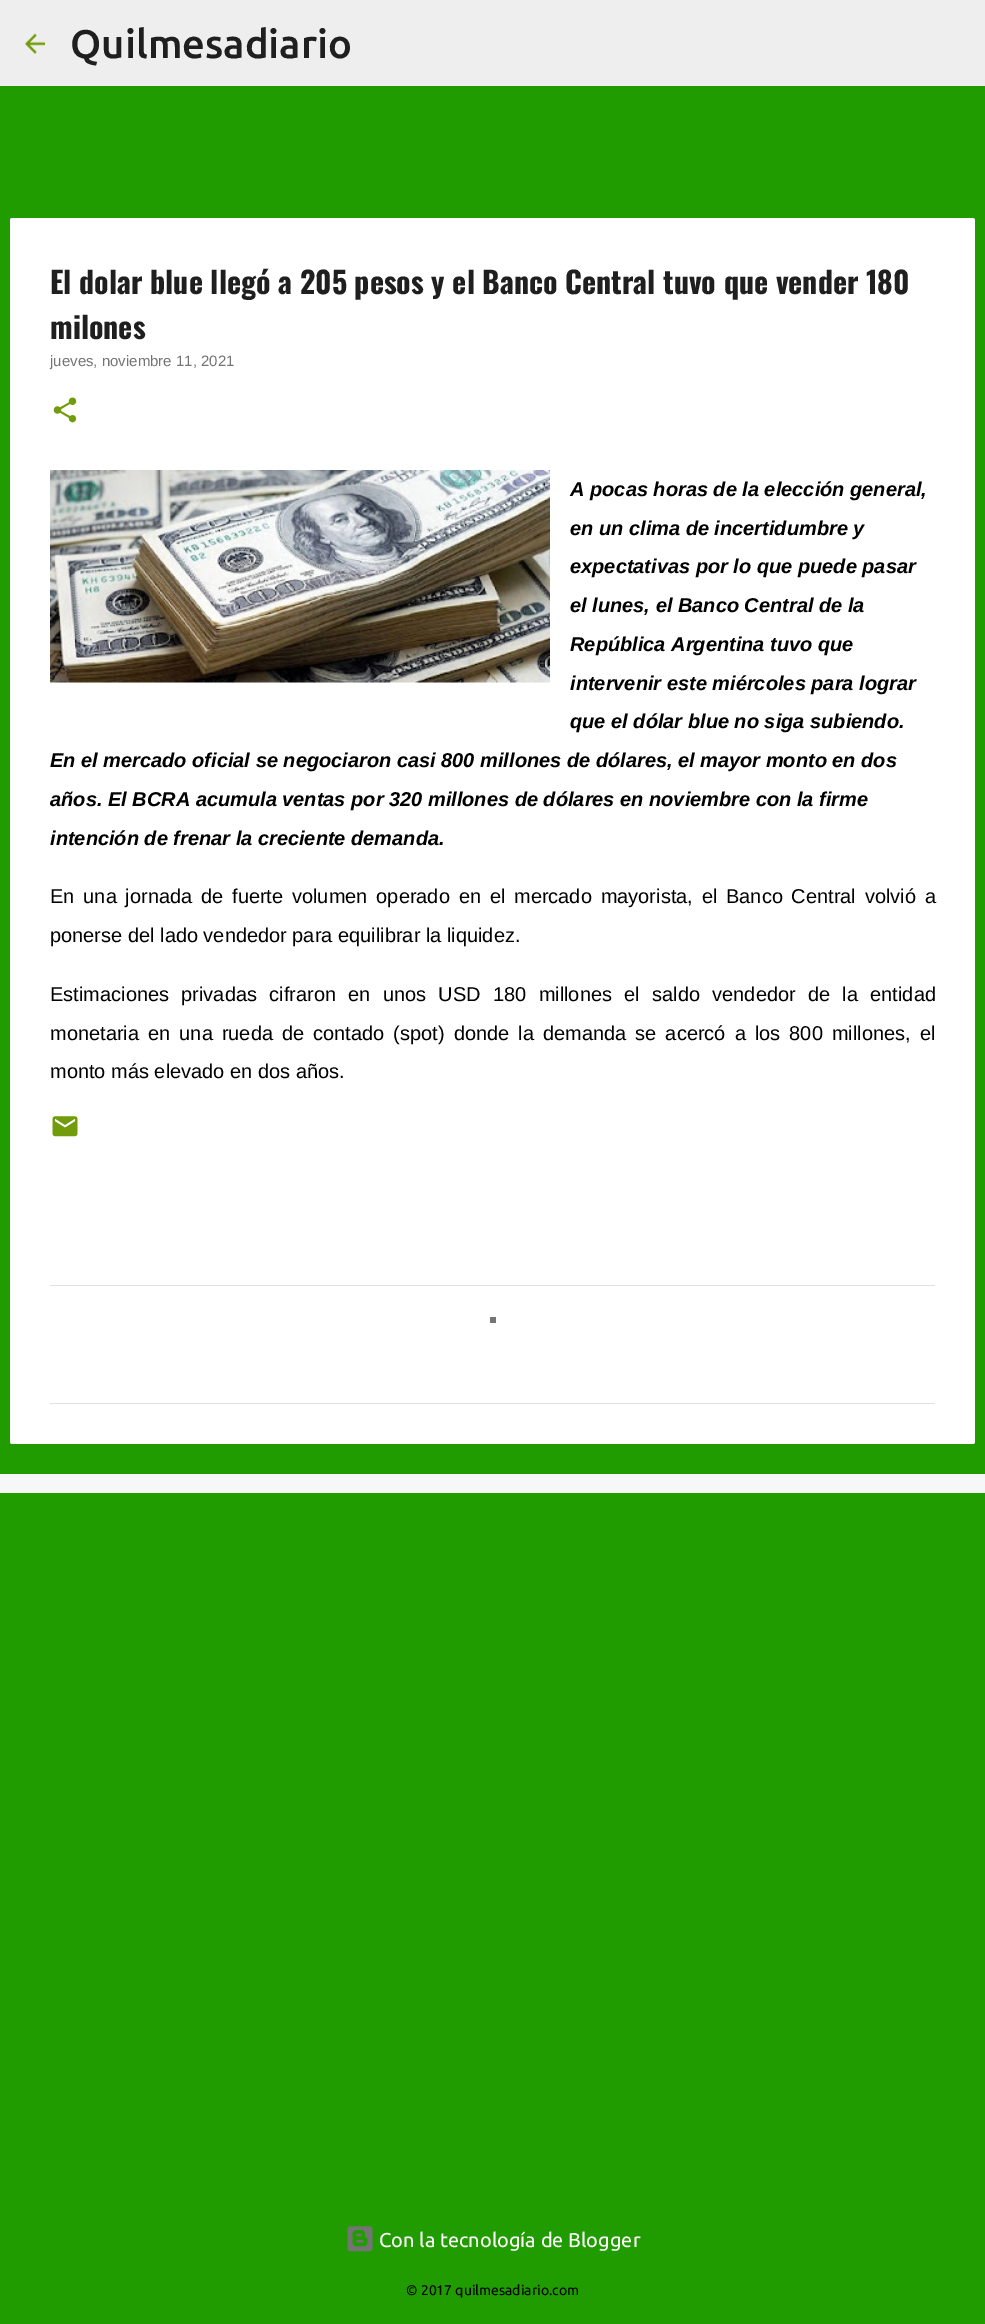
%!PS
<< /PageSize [985 2324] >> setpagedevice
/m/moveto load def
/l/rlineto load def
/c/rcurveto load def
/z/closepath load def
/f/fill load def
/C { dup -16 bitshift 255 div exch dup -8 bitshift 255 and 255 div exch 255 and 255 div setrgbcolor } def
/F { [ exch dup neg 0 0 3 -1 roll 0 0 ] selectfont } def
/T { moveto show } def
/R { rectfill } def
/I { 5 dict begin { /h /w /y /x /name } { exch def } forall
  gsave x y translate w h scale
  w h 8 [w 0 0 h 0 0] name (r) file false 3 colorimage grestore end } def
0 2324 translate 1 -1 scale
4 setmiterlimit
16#219C00 C
0 0 985 2324 R
16#EEEEEE C
0 0 985 86 R
(1.rgb) 25 33 20 21 I
/Ubuntu-Medium 40 F
16#1F1F1F C
(Quilmesadiario) 70 58 T
16#FFFFFF C
12.5 218 m 960 0 l 1.5 0 2.5 1 2.5 2.5 c 0 1064.5 l -965 0 l 0 -1064.5 l 0 -1.5 1 -2.5 2.5 -2.5 c z f
/Oswald-Bold 30 F
16#1F1F1F C
(El dolar blue llegó a 205 pesos y el Banco Central tuvo que vender 180) 50 294 T
(milones) 50 339 T
/LiberationSans-Regular 15 F
16#747474 C
(jueves, noviembre 11, 2021) 50 366 T
(2.rgb) 53 397 24 26 I
(3.rgb) 50 470 500 213 I
/LiberationSans-BoldItalic 20 F
16#000000 C
(A pocas horas de la elección general,) 570 496 T
(en un clima de incertidumbre y) 570 535 T
(expectativas por lo que puede pasar) 570 573 T
(el lunes, el Banco Central de la) 570 612 T
(República Argentina tuvo que) 570 651 T
(intervenir este miércoles para lograr) 570 690 T
(que el dólar blue no siga subiendo.) 570 728 T
(En el mercado oficial se negociaron casi 800 millones de dólares, el mayor monto en dos) 50 767 T
(años. El BCRA acumula ventas por 320 millones de dólares en noviembre con la firme) 50 806 T
(intención de frenar la creciente demanda.) 50 845 T
/LiberationSans-Regular 20 F
50 903 m 3.25 0 32 (En una jornada de fuerte volumen operado en el mercado mayorista, el Banco Central volvió a) widthshow
(ponerse del lado vendedor para equilibrar la liquidez.) 50 942 T
50 1001 m 6.75 0 32 (Estimaciones privadas cifraron en unos USD 180 millones el saldo vendedor de la entidad) widthshow
50 1040 m 3.5 0 32 (monetaria en una rueda de contado \(spot\) donde la demanda se acercó a los 800 millones, el) widthshow
(monto más elevado en dos años.) 50 1078 T
(4.rgb) 52 1116 26 21 I
16#FFFFFF C
10 1285 m 965 0 l 0 156.5 l 0 1.5 -1 2.5 -2.5 2.5 c -960 0 l -1.5 0 -2.5 -1 -2.5 -2.5 c z f
16#E0E0E0 C
50 1285 885 1 R
50 1403 885 1 R
16#F7F7F7 C
0 1474 985 19 R
(5.rgb) 347 2226 26 26 I
/Ubuntu-Regular 20 F
16#FFFFFF C
(Con la tecnología de Blogger) 379 2247 T
/Ubuntu-Regular 14 F
16#000000 C
(© 2017 quilmesadiario.com) 406 2295 T
16#757575 C
490 1317 6 6 R
showpage
